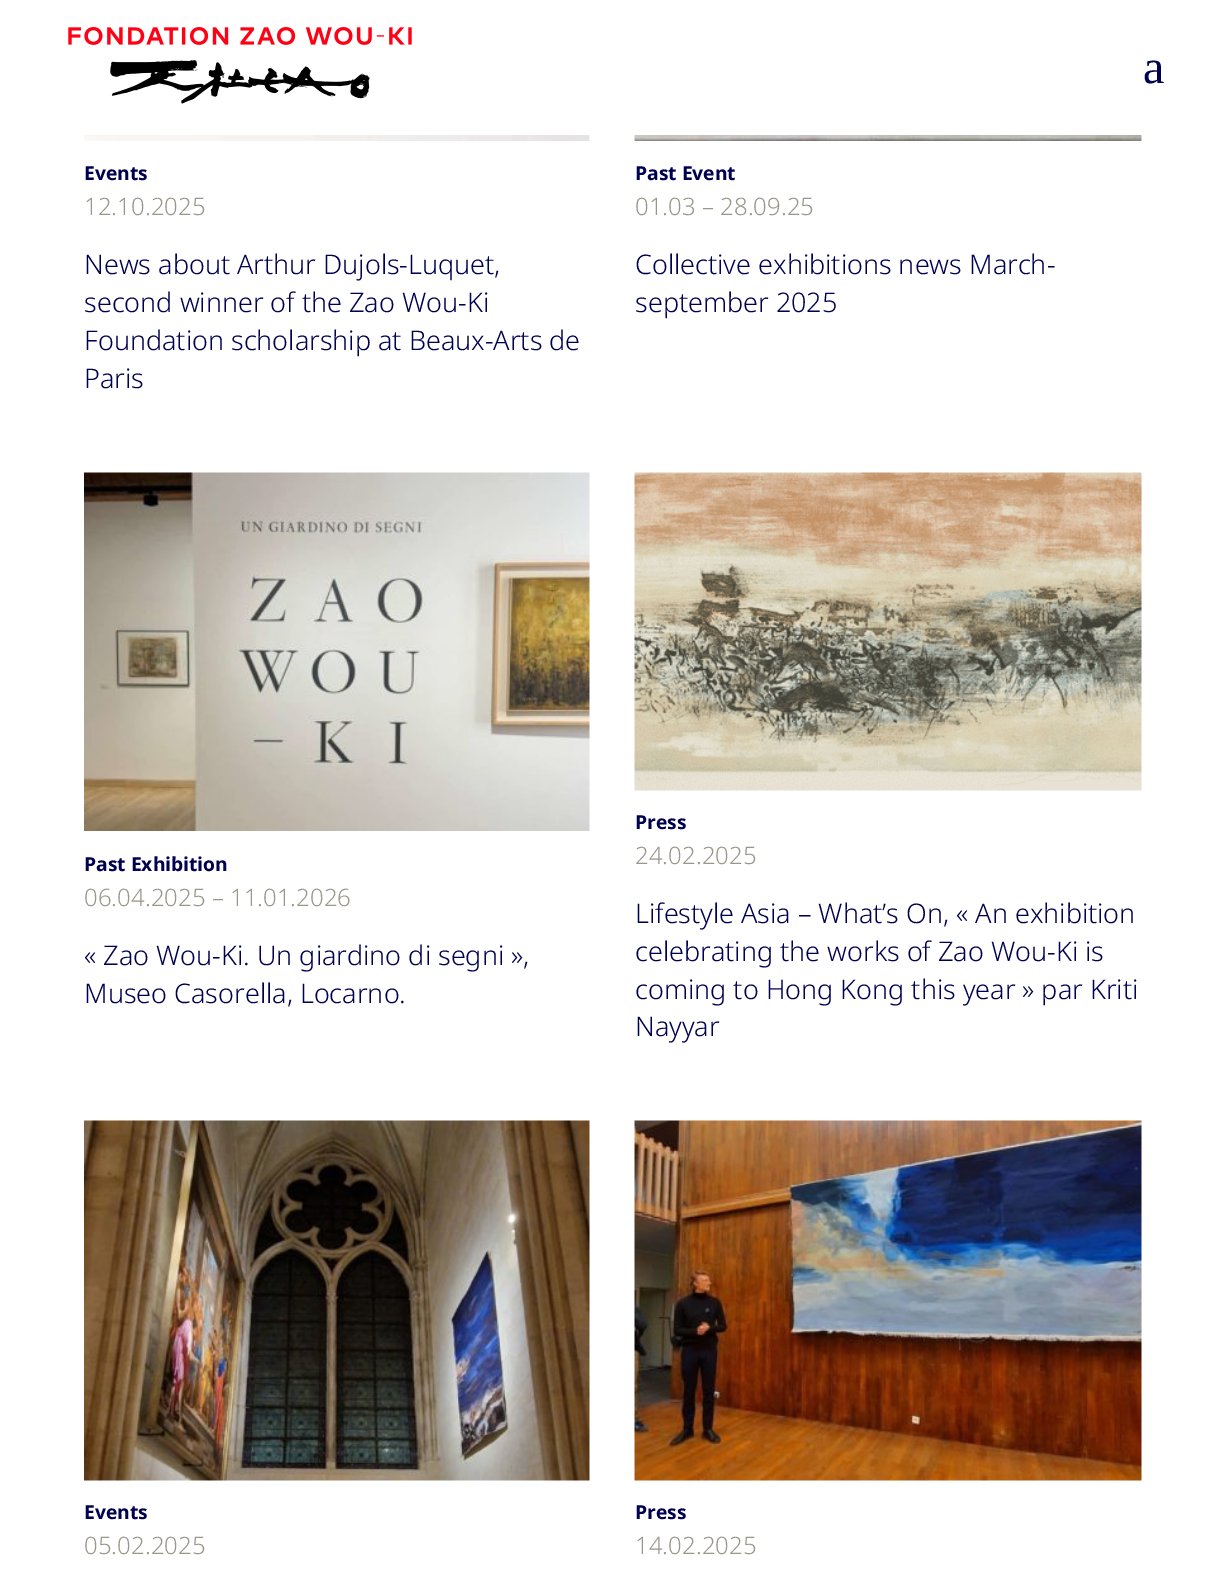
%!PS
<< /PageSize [1225 1586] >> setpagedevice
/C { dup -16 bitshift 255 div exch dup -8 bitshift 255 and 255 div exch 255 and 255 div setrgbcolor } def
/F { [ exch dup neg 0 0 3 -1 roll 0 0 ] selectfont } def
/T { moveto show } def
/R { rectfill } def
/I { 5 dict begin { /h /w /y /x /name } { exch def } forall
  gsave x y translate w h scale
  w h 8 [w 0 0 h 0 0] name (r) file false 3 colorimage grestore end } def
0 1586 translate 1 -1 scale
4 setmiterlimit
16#FFFFFF C
0 0 1225 1586 R
(1.rgb) 68 27 344 77 I
/LiberationSerif-Regular 48 F
16#000050 C
(a) 1143 83 T
(2.rgb) 84 135 506 6 I
/NotoSans-Bold 19.25 F
(Events) 84 180 T
/NotoSans-Light 24 F
16#99968A C
(12.10.2025) 84 215 T
/NotoSans-Light 27 F
16#000050 C
(News about Arthur Dujols-Luquet,) 84 274 T
(second winner of the Zao Wou-Ki) 84 312 T
(Foundation scholarship at Beaux-Arts de) 84 350 T
(Paris) 84 388 T
(3.rgb) 634 135 508 6 I
/NotoSans-Bold 19.25 F
(Past Event) 635 180 T
/NotoSans-Light 24 F
16#99968A C
(01.03 – 28.09.25) 635 215 T
/NotoSans-Light 27 F
16#000050 C
(Collective exhibitions news March-) 635 274 T
(september 2025) 635 312 T
(4.rgb) 84 472 506 359 I
/NotoSans-Bold 19.25 F
(Past Exhibition) 84 871 T
/NotoSans-Light 24 F
16#99968A C
(06.04.2025 – 11.01.2026) 84 906 T
/NotoSans-Light 27 F
16#000050 C
(« Zao Wou-Ki. Un giardino di segni »,) 84 965 T
(Museo Casorella, Locarno.) 84 1003 T
(5.rgb) 634 472 508 319 I
/NotoSans-Bold 19.25 F
(Press) 635 829 T
/NotoSans-Light 24 F
16#99968A C
(24.02.2025) 635 864 T
/NotoSans-Light 27 F
16#000050 C
(Lifestyle Asia – What’s On, « An exhibition) 635 923 T
(celebrating the works of Zao Wou-Ki is) 635 961 T
(coming to Hong Kong this year » par Kriti) 635 999 T
(Nayyar) 635 1036 T
(6.rgb) 84 1120 506 361 I
/NotoSans-Bold 19.25 F
(Events) 84 1519 T
/NotoSans-Light 24 F
16#99968A C
(05.02.2025) 84 1554 T
(7.rgb) 634 1120 508 361 I
/NotoSans-Bold 19.25 F
16#000050 C
(Press) 635 1519 T
/NotoSans-Light 24 F
16#99968A C
(14.02.2025) 635 1554 T
showpage
